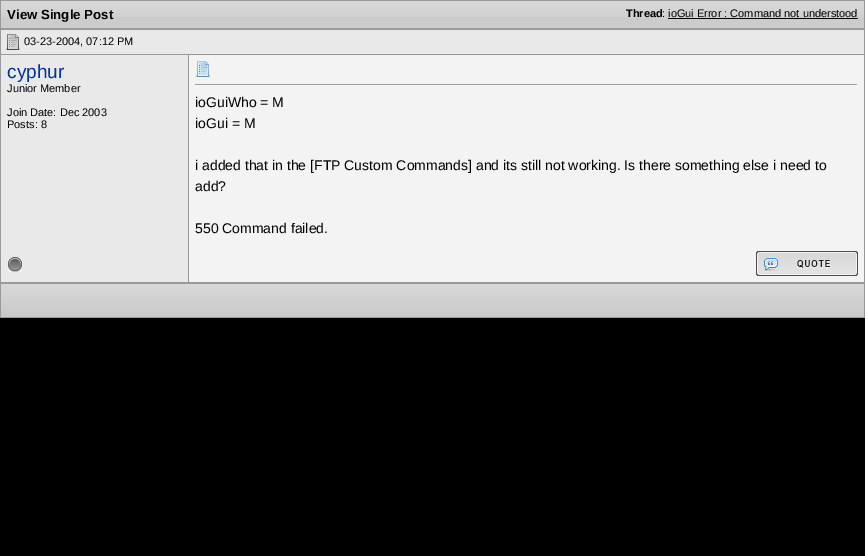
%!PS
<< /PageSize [865 556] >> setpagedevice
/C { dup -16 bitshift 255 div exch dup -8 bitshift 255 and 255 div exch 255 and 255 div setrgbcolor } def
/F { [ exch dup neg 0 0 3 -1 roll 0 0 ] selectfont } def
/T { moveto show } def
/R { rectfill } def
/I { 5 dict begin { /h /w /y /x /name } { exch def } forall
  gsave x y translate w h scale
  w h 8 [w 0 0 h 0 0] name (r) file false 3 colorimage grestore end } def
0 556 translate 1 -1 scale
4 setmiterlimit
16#000000 C
0 0 865 556 R
16#999999 C
0 0 865 29 R
16#CCCCCC C
1 17 863 11 R
(1.rgb) 1 1 863 16 I
/LiberationSans-Bold 13.25 F
16#000000 C
(View Single Post) 7 19 T
/LiberationSans-Bold 11 F
(Thread) 626 17 T
/LiberationSans-Regular 11 F
(: ioGui Error : Command not understood) 662 17 T
668 18 190 1 R
16#E9E9E9 C
1 30 863 24 R
16#999999 C
0 29 865 1 R
0 54 189 1 R
0 29 1 216 R
(2.rgb) 5 34 16 16 I
16#000000 C
(03-23-2004, 07:12 PM) 24 45 T
16#999999 C
864 29 1 254 R
189 54 676 1 R
16#E9E9E9 C
1 55 187 227 R
16#999999 C
188 55 1 228 R
/LiberationSans-Regular 19 F
16#003399 C
(cyphur) 7 78 T
/LiberationSans-Regular 11 F
16#000000 C
(Junior Member) 7 92 T
(Join Date: Dec 2003) 7 116 T
(Posts: 8) 7 128 T
16#F3F3F3 C
189 55 675 227 R
(3.rgb) 195 61 16 16 I
16#9F9F9F C
195 84 663 1 R
16#EEEEEE C
857 84 1 1 R
/LiberationSans-Regular 14 F
16#000000 C
(ioGuiWho = M) 195 107 T
(ioGui = M) 195 128 T
(i added that in the [FTP Custom Commands] and its still not working. Is there something else i need to) 195 170 T
(add?) 195 191 T
(550 Command failed.) 195 233 T
16#999999 C
0 282 865 36 R
0 245 1 38 R
(4.rgb) 7 257 16 15 I
(5.rgb) 756 251 102 25 I
(6.rgb) 1 284 863 33 I
showpage
